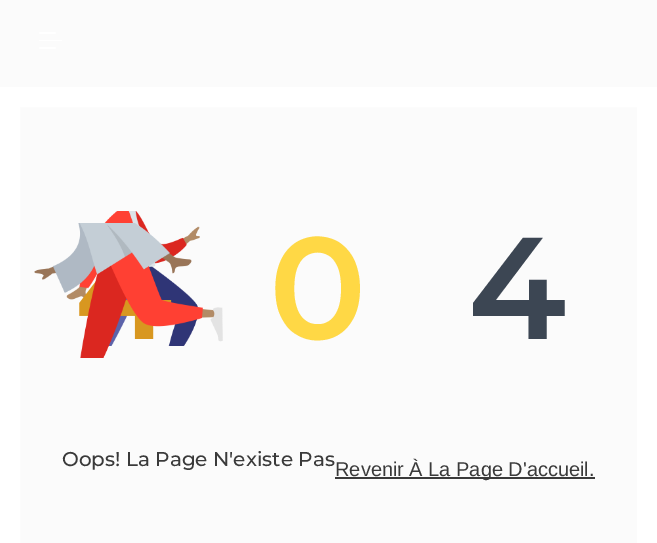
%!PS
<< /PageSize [657 543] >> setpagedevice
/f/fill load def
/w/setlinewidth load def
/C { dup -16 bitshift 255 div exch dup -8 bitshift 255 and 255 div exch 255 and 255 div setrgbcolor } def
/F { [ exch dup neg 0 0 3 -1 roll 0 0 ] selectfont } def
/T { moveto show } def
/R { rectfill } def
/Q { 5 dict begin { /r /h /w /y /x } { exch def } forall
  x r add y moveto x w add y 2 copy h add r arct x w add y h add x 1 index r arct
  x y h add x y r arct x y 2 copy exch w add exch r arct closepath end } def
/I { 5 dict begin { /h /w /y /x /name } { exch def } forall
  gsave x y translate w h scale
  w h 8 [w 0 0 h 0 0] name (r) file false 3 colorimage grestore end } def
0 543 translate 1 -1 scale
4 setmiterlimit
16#FBFBFB C
0 0 657 543 R
16#FFFFFF C
39 32 17 2 1 Q f
39 40 23 1 .5 Q f
39 47 17 2 1 Q f
20 w
10 97 637 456 rectstroke
(1.rgb) 66 211 134 135 I
(2.rgb) 34 223 189 135 I
/Montserrat-SemiBold 145 F
16#FFD845 C
(0) 269 339 T
16#3C4653 C
(4) 468 339 T
/Montserrat-Medium 20 F
16#3A3A3A C
(Oops! La Page N'existe Pas) 62 466 T
335 477 260 2 R
/LiberationSans-Regular 20 F
(Revenir À La Page D'accueil.) 335 476 T
showpage
